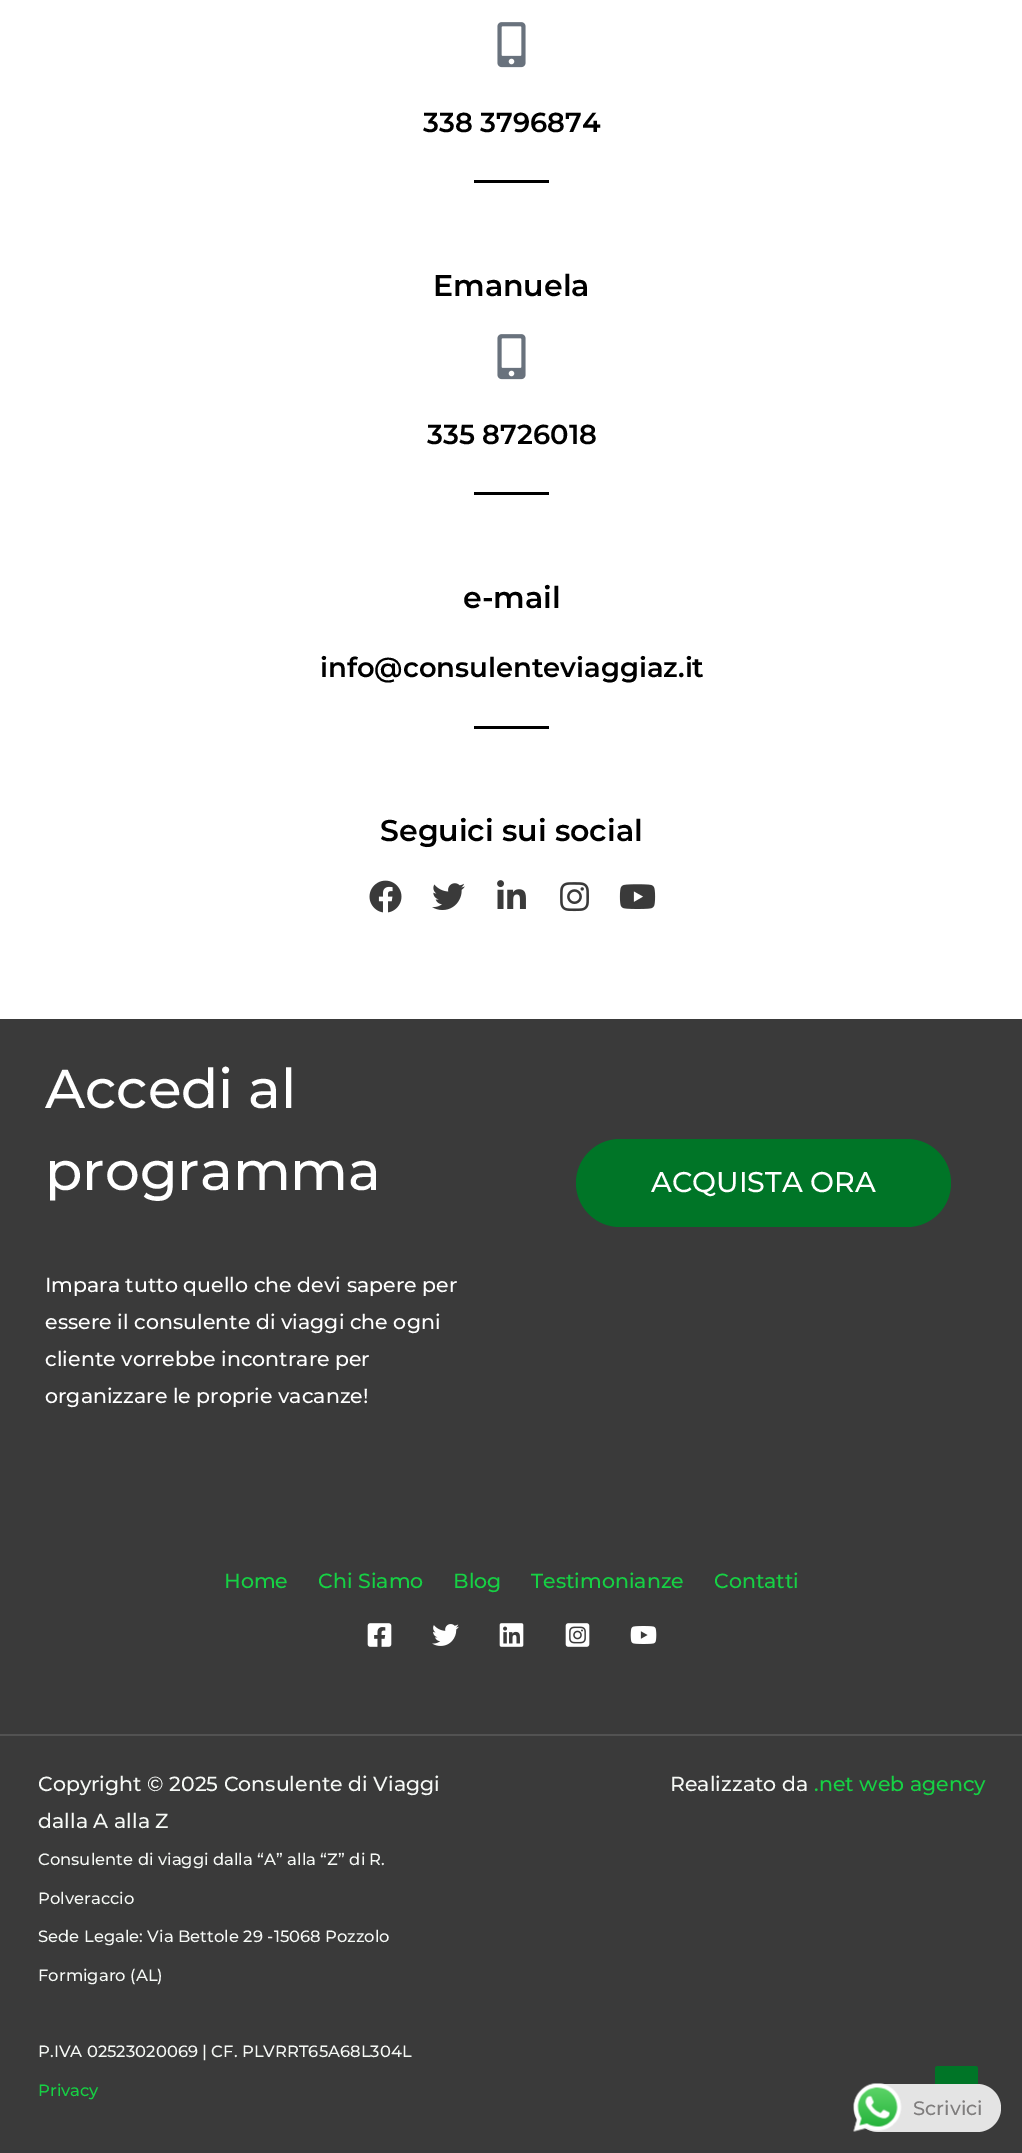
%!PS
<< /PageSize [1022 2153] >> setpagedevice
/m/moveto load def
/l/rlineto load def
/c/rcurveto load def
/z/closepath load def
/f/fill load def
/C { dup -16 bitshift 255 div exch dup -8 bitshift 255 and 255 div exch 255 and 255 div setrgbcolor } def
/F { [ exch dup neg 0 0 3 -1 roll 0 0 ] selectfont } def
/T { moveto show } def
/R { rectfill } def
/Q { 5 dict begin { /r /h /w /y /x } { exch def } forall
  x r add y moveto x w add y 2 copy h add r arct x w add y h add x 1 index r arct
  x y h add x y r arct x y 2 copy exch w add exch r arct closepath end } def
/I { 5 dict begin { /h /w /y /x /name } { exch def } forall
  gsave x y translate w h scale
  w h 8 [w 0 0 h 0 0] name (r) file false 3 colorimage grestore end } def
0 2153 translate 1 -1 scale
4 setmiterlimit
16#FFFFFF C
0 0 1022 2153 R
(1.rgb) 497 22 29 46 I
/Montserrat-SemiBold 27.4 F
16#000000 C
(338 3796874) 423 132 T
474 180 75 3 R
/Montserrat-SemiBold 30 F
(Emanuela) 433 296 T
(1.rgb) 497 334 29 46 I
/Montserrat-SemiBold 27.4 F
(335 8726018) 427 444 T
474 492 75 3 R
/Montserrat-SemiBold 30 F
(e-mail) 463 608 T
/Montserrat-SemiBold 27.4 F
(info@consulenteviaggiaz.it) 320 677 T
474 726 75 3 R
/Montserrat-SemiBold 30 F
(Seguici sui social) 380 841 T
(2.rgb) 369 880 33 33 I
(3.rgb) 432 883 33 27 I
(4.rgb) 497 880 29 29 I
(5.rgb) 560 882 29 30 I
(6.rgb) 619 884 37 25 I
16#3A3A3A C
0 1019 1022 1134 R
/Montserrat-Medium 54.75 F
16#FFFFFF C
(Accedi al) 45 1108 T
(programma) 45 1190 T
/Montserrat-Medium 20.5 F
(Impara tutto quello che devi sapere per) 45 1292 T
(essere il consulente di viaggi che ogni) 45 1329 T
(cliente vorrebbe incontrare per) 45 1366 T
(organizzare le proprie vacanze!) 45 1403 T
16#007527 C
576 1139 375 88 44 Q f
/Montserrat-Medium 28.5 F
16#FFFFFF C
(ACQUISTA ORA) 651 1192 T
/Montserrat-Medium 20.5 F
16#16D144 C
(Home) 224 1588 T
(Chi Siamo) 318 1588 T
(Blog) 453 1588 T
(Testimonianze) 531 1588 T
(Contatti) 714 1588 T
(7.rgb) 367 1623 25 24 I
(8.rgb) 432 1624 27 22 I
(9.rgb) 499 1623 25 24 I
(10.rgb) 565 1623 25 24 I
(11.rgb) 630 1626 27 18 I
16#525252 C
0 1734 1022 2 R
16#F6F9F6 C
(Copyright © 2025 Consulente di Viaggi) 38 1791 T
(dalla A alla Z) 38 1828 T
/Montserrat-Medium 16.4 F
(Consulente di viaggi dalla “A” alla “Z” di R.) 38 1865 T
(Polveraccio) 38 1904 T
(Sede Legale: Via Bettole 29 -15068 Pozzolo) 38 1942 T
(Formigaro \(AL\)) 38 1981 T
(P.IVA 02523020069 | CF. PLVRRT65A68L304L) 38 2057 T
16#16D144 C
(Privacy) 38 2096 T
/Montserrat-Medium 20.5 F
16#F6F9F6 C
(Realizzato da) 670 1791 T
16#16D144 C
(.net web agency) 814 1791 T
16#007527 C
975 2109 m -37 0 l -2 0 -3 -1 -3 -3 c 0 -37 l 0 -2 1 -3 3 -3 c 37 0 l 2 0 3 1 3 3 c 0 37 l 0 2 -1 3 -3 3 c z f
16#E4E4E4 C
854 2084 147 48 24 Q f
(12.rgb) 853 2083 49 49 I
/Montserrat-Medium 19.5 F
16#7F7D7D C
(Scrivici) 913 2115 T
showpage
